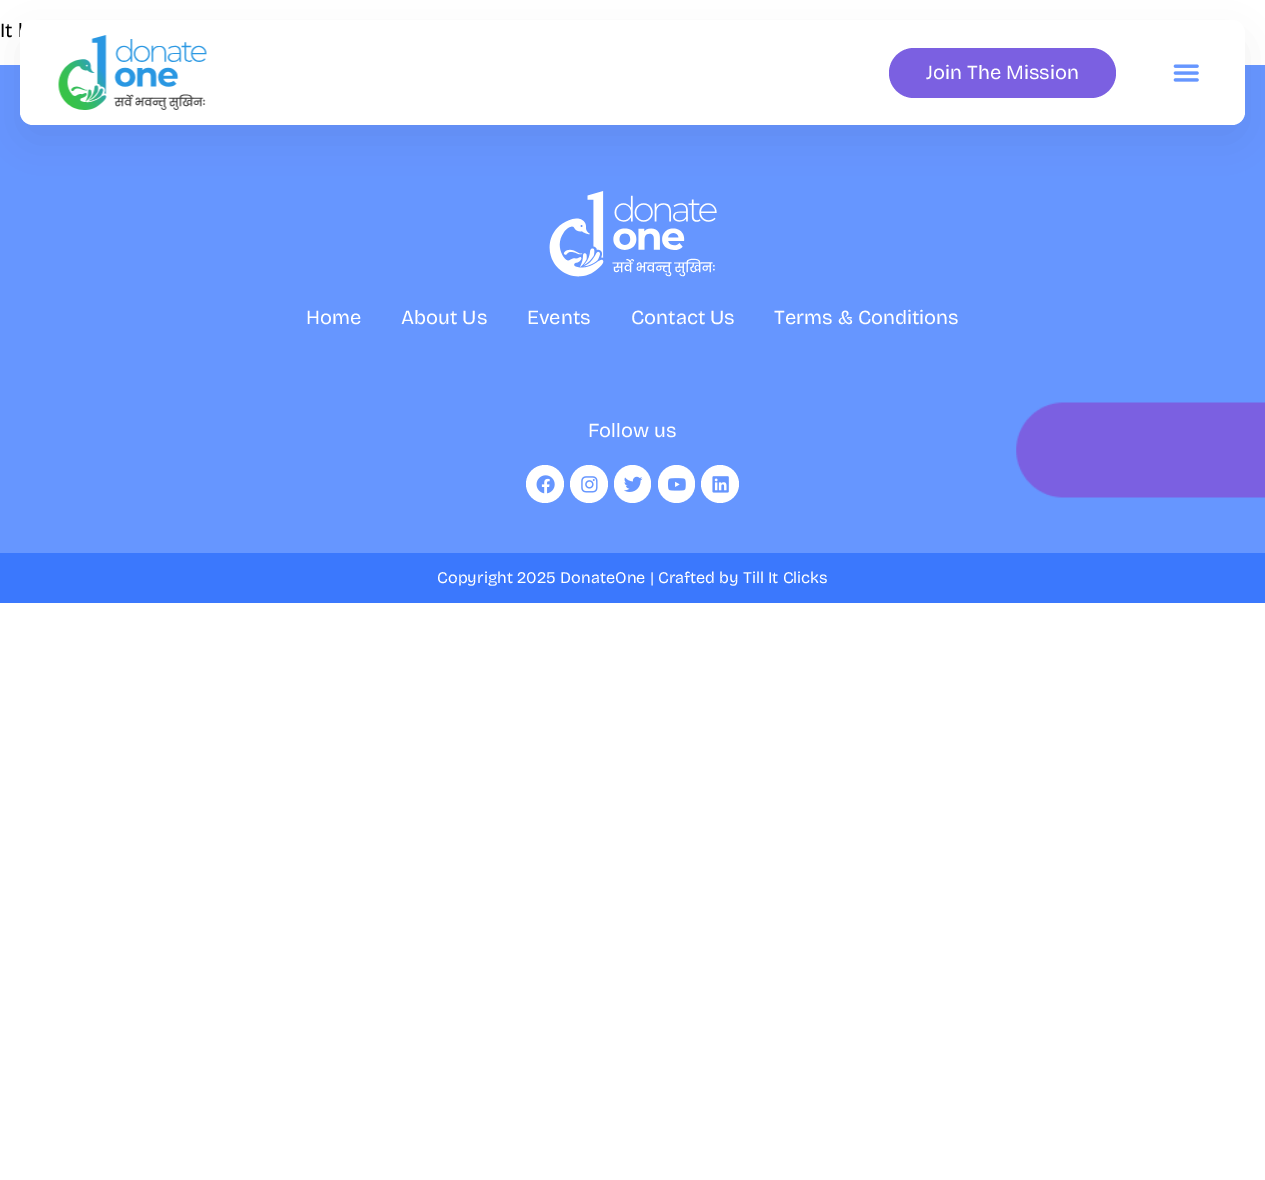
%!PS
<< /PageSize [1265 1180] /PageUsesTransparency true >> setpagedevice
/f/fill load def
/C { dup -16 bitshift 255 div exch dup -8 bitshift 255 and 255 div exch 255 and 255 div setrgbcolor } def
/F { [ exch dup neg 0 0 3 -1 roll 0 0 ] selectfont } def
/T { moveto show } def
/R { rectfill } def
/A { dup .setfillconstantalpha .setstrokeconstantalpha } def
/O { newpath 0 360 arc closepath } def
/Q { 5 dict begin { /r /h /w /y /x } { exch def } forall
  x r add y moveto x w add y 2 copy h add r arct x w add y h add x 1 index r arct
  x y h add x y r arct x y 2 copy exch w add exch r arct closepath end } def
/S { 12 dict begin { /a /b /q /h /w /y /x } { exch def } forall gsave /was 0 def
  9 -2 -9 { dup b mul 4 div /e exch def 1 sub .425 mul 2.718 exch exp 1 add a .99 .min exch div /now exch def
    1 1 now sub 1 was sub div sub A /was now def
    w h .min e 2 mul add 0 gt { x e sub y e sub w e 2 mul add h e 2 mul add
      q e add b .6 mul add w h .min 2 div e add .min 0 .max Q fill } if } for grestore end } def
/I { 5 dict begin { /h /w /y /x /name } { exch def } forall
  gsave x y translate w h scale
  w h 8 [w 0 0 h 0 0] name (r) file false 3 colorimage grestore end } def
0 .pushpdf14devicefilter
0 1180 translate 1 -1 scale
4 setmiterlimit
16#FFFFFF C
0 0 1265 1180 R
/BricolageGrotesque-Regular 20 F
16#000000 C
(It l) 0 37 T
16#6696FF C
0 65 1265 488 R
(3.rgb) 549 191 168 86 I
16#000000 C
19 34 1227 107 14 20 .06 S
16#FFFFFF C
20 20 1225 105 13 Q f
(1.rgb) 58 35 149 75 I
16#7B60E1 C
889 48 227 50 25 Q f
16#FFFFFF C
(Join The Mission) 926 79 T
(2.rgb) 1173 64 26 18 I
(Home) 306 324 T
(About Us) 401 324 T
(Events) 527 324 T
(Contact Us) 631 324 T
(Terms & Conditions) 774 324 T
(Follow us) 588 437 T
545 484 19 O f
(4.rgb) 536 475 19 19 I
589 484 19 O f
(5.rgb) 581 476 17 17 I
614 465 37 38 18.5 Q f
(6.rgb) 624 476 19 16 I
658 465 37 38 18.5 Q f
(7.rgb) 668 478 18 13 I
720 484 19 O f
(8.rgb) 712 476 17 17 I
16#3B78FD C
0 553 1265 50 R
(9.rgb) 1016 402 249 96 I
/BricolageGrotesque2-Regular 16.25 F
16#FFFFFF C
(Copyright 2025 DonateOne | Crafted by Till It Clicks) 437 583 T
.poppdf14devicefilter showpage
